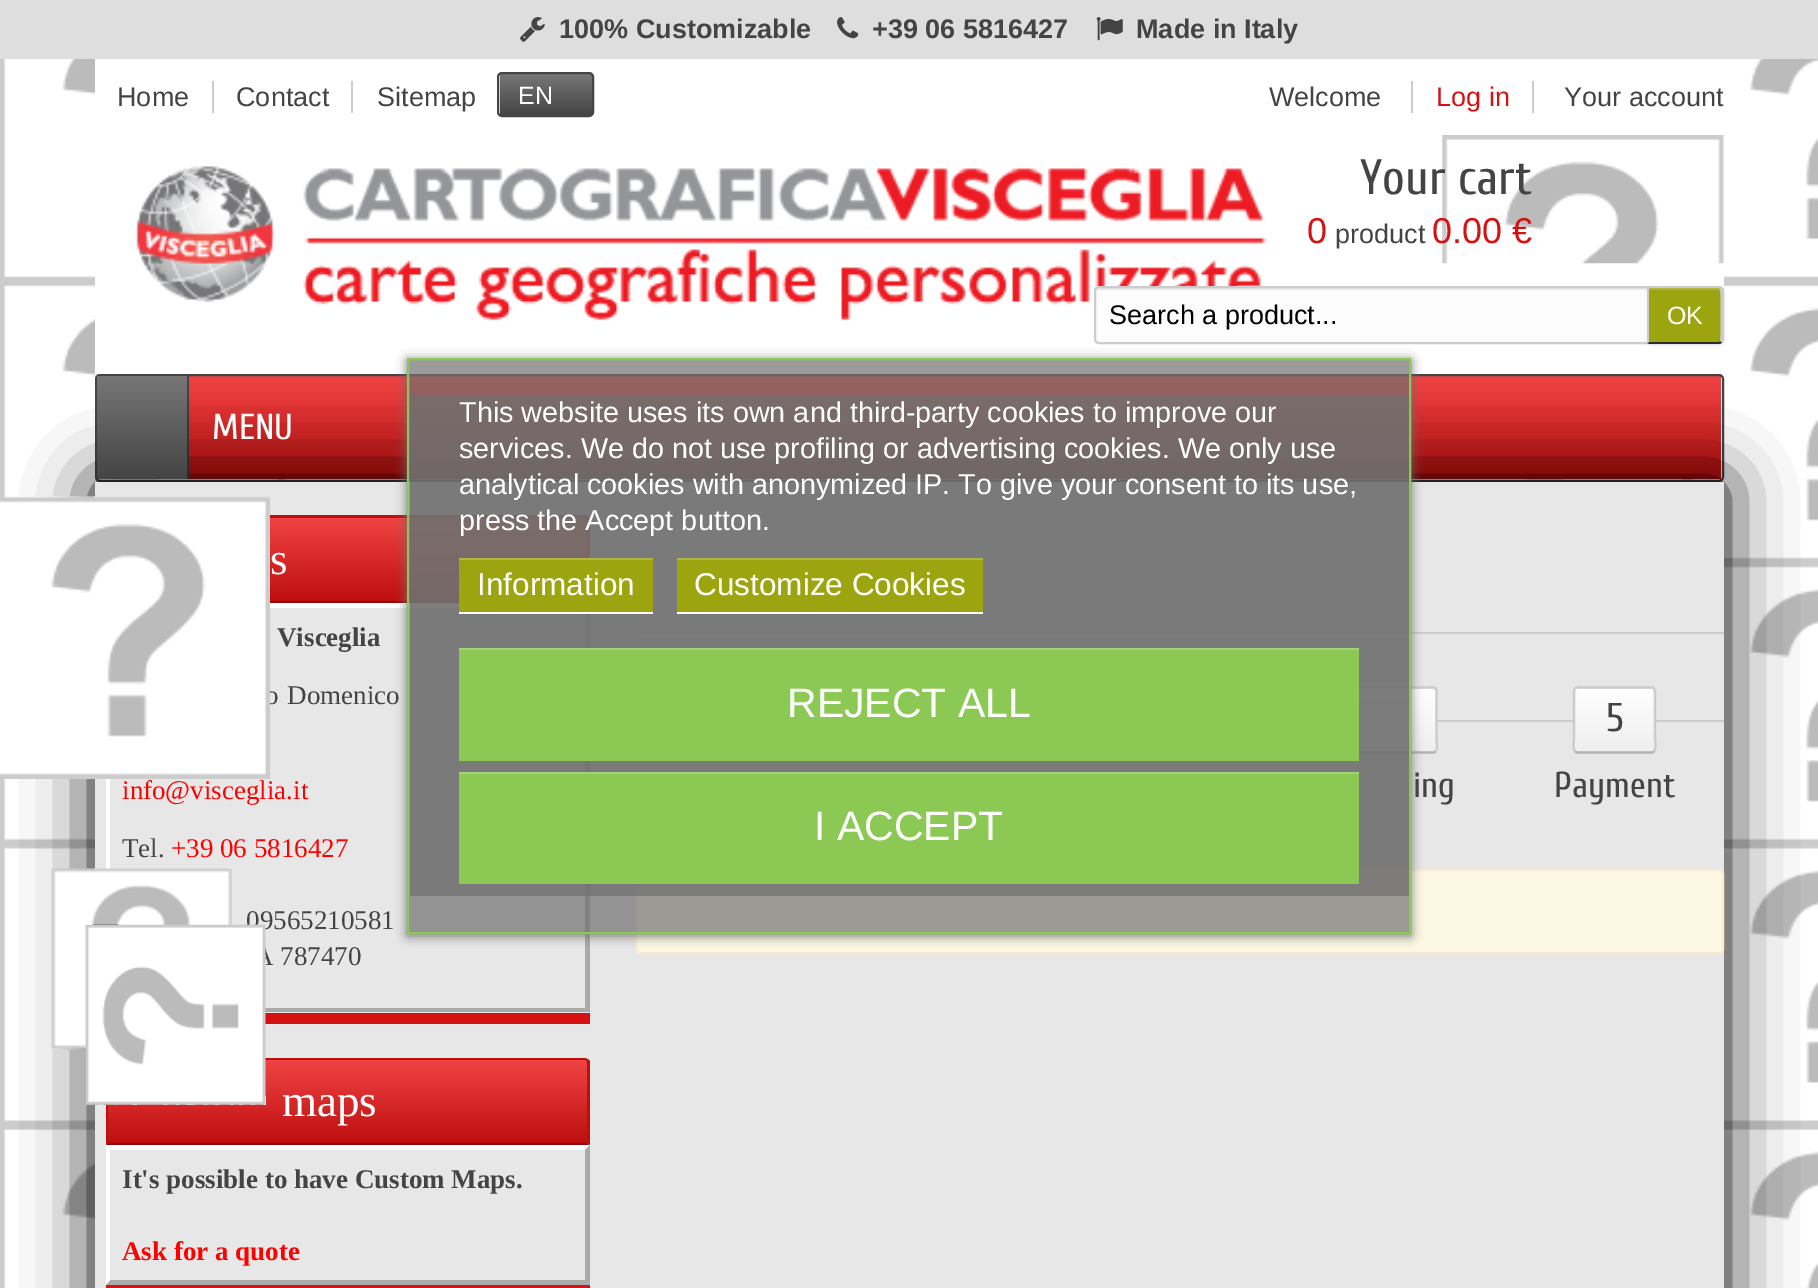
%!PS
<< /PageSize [1818 1288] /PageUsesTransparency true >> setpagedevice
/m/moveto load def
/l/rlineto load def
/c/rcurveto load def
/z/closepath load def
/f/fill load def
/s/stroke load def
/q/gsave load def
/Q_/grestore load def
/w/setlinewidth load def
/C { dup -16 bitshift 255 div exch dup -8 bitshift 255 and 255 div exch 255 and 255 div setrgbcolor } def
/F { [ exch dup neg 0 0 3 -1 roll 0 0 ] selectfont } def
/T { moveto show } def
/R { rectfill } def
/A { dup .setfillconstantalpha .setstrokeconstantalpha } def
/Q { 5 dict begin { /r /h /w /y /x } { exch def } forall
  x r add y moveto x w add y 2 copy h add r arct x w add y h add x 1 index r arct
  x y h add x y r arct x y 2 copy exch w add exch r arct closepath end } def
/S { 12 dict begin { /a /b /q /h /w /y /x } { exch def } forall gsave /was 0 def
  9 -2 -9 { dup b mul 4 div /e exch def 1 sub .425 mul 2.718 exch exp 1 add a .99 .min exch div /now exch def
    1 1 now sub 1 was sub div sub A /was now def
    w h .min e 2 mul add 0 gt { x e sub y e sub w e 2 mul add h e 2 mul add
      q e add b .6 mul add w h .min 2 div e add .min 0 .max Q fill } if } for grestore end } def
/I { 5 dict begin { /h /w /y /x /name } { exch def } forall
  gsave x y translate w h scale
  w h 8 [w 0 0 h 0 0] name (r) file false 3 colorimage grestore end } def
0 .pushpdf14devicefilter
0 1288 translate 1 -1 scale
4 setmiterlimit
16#FFFFFF C
0 0 1818 1288 R
(1.rgb) 0 59 1818 1229 I
16#DEDEDE C
0 0 1818 59 R
(2.rgb) 520 17 25 25 I
/LiberationSans-Bold 27 F
16#444444 C
(100% Customizable) 559 38 T
(3.rgb) 837 17 22 22 I
(+39 06 5816427) 872 38 T
(4.rgb) 1096 17 27 24 I
(Made in Italy) 1136 38 T
16#FFFFFF C
95 59 1629 315 R
/LiberationSans-Regular 27 F
16#444444 C
(Home) 117 106 T
16#CCCCCC C
212 81 2 32 R
16#444444 C
(Contact) 236 106 T
16#CCCCCC C
351 81 2 32 R
16#444444 C
(Sitemap) 377 106 T
q 500 74 92 41 2 Q clip newpath
<< /ShadingType 2 /ColorSpace /DeviceRGB /Coords [546 74 546 115] /Extend [true true] /Function << /FunctionType 2 /Domain [0 1] /C0 [.467 .467 .467] /C1 [.267 .267 .267] /N 1 >> >> shfill Q_
2 w
498 73 95 43 4 Q s
/LiberationSans-Regular 25 F
16#FFFFFF C
(EN) 518 104 T
/LiberationSans-Regular 27 F
16#444444 C
(Welcome) 1269 106 T
16#D61111 C
(Log in) 1436 106 T
16#CCCCCC C
1532 81 2 32 R
1411 81 2 32 R
16#444444 C
(Your account) 1564 106 T
(5.rgb) 1442 135 282 129 I
/Cuprum-Regular 49.5 F
(Your cart) 1360 194 T
/LiberationSans-Regular 36 F
16#D61111 C
(0) 1307 243 T
/LiberationSans-Regular 27 F
16#444444 C
(product) 1335 243 T
/LiberationSans-Regular 36 F
16#D61111 C
(0.00 €) 1432 243 T
(6.rgb) 136 166 1131 155 I
16#FCFCFC C
1094 286 630 58 5 Q f
16#E9E9E9 C
1098 290 m 621 0 l 1 0 2 1 2 2 c 0 -2 0 -4 -2 -4 c -621 0 l -2 1 l 0 3 l 0 -1 1 -2 2 -2 c z f
16#CCCCCC C
1095 287 628 56 4 Q s
/LiberationSans-Regular 27 F
16#000000 C
(Search a product...) 1109 324 T
1647 288 77 59 5 2 .05 S
16#9CA510 C
1649 288 m 70 0 l 1 0 2 1 2 2 c 0 50 l 0 1 -1 2 -2 2 c -70 0 l z f
0.2 A
16#FFFFFF C
1649 290 m 70 0 l 1 0 2 1 2 2 c 0 -2 l 0 -1 -1 -2 -2 -2 c -70 0 l z f
1 A
16#CCCCCC C
1722 287 m -3 -1 l -72 0 l 2 2 l 70 0 l 1 1 l z f
1724 341 m -2 2 l -2 -2 l 1 -1 1 -51 0 -52 c 2 -2 l 2 2 l z f
16#2B2B2B C
1722 343 m -3 1 l -72 0 l 2 -2 l 70 0 l 1 -1 l z f
16#CCCCCC C
1649 288 m 0 54 l -2 2 l 0 -58 l z f
/LiberationSans-Regular 25 F
16#FFFFFF C
(OK) 1667 324 T
q 97 376 1624 103 2 Q clip newpath
<< /ShadingType 2 /ColorSpace /DeviceRGB /Coords [909 376 909 479] /Extend [true true] /Function << /FunctionType 2 /Domain [0 1] /C0 [.941 .263 .263] /C1 [.745 .059 .059] /N 1 >> >> shfill Q_
16#444444 C
96 375 1627 106 4 Q s
16#000000 C
95 482 1629 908 0 34 1 S
q 97 376 m 92 0 l 0 103 l -92 0 l z clip newpath
<< /ShadingType 2 /ColorSpace /DeviceRGB /Coords [142 376 142 479] /Extend [true true] /Function << /FunctionType 2 /Domain [0 1] /C0 [.467 .467 .467] /C1 [.267 .267 .267] /N 1 >> >> shfill Q_
0.4 A
187 376 2 103 R
/Cuprum-Regular 36 F
1 A
16#FFFFFF C
(MENU) 212 439 T
16#E8E7E7 C
95 482 1629 806 R
q 110 518 m 475 0 l 1 0 2 1 2 2 c 0 81 l -479 0 l 0 -81 l 0 -1 1 -2 2 -2 c z clip newpath
<< /ShadingType 2 /ColorSpace /DeviceRGB /Coords [348 518 348 601] /Extend [true true] /Function << /FunctionType 2 /Domain [0 1] /C0 [.941 .263 .263] /C1 [.745 .059 .059] /N 1 >> >> shfill Q_
16#BE0F0F C
110 518 m -1 0 l -2 -1 l 2 -2 l 477 0 l 2 1 l -2 3 l -1 -1 l z f
590 518 m 0 85 l -3 -3 l 0 -80 l -1 -1 l 2 -3 l z f
16#8F0B0B C
590 603 m -3 -3 l 0 1 l -479 0 l -2 2 l z f
16#FFFFFF C
106 603 m 484 0 l -5 5 l -475 0 l z f
16#AAAAAA C
590 603 m 0 409 l -5 -4 l 0 -400 l z f
590 1012 m -484 0 l 4 -4 l 475 0 l z f
16#FFFFFF C
106 1012 m 0 -409 l 4 5 l 0 400 l z f
/LiberationSerif-Regular 27 F
16#444444 C
265 704 m 2 0 32 (o Domenico) widthshow
(7.rgb) 0 496 270 283 I
(8.rgb) 51 868 181 182 I
16#D61111 C
265 1013 325 11 R
16#444444 C
246 929 m 14 0 32 (09565210581) widthshow
(A 787470) 254 965 T
q 110 1060 m 475 0 l 1 0 2 1 2 2 c 0 81 l -479 0 l 0 -81 l 0 -1 1 -2 2 -2 c z clip newpath
<< /ShadingType 2 /ColorSpace /DeviceRGB /Coords [348 1060 348 1143] /Extend [true true] /Function << /FunctionType 2 /Domain [0 1] /C0 [.941 .263 .263] /C1 [.745 .059 .059] /N 1 >> >> shfill Q_
16#BE0F0F C
110 1058 m -3 1 l 2 2 l 1 -1 l 475 0 l 1 1 l 2 -2 l -3 -1 l z f
590 1145 m -3 -2 l 0 -81 l -1 -1 l 2 -2 l 2 2 l z f
16#8F0B0B C
589 1145 m -483 0 l 2 -2 l 479 0 l z f
16#BE0F0F C
107 1059 m -1 3 l 0 83 l 2 -2 l 0 -81 l 1 -1 l z f
(9.rgb) 85 924 181 181 I
16#CCCCCC C
635 632 1089 2 R
q 1357 689 79 63 2 Q clip newpath
<< /ShadingType 2 /ColorSpace /DeviceRGB /Coords [1396 689 1396 752] /Extend [true true] /Function << /FunctionType 2 /Domain [0 1] /C0 [1 1 1] /C1 [.933 .933 .933] /N 1 >> >> shfill Q_
16#B2B2B2 C
2.2 w
1435.5 751.5 m -2 1 l -75 0 l -2 -1 l s
16#CCCCCC C
1437 720 287 2 R
1356.5 751.5 m -2.5 -2.5 -1 -11 -1 -12 c 0 -39 l 0 -16 -1 -13 16 -13 c 49.5 0 l 17 0 15.5 -3 15.5 13 c 0 39 l 0 1 1.5 9.5 -1 12 c s
16#FCF8E3 C
636 870 1087 83 4 Q q f Q_
16#FAEBCC C
2 w
s
q
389 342 m 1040 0 l 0 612 l -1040 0 l z 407 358 m 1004 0 l 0 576 l -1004 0 l z eoclip newpath
16#707070 C
407 360 1004 576 0 5.5 1 S
Q_
0.7 A
16#707070 C
408 359 m 1002 0 l 0 574 l -1002 0 l z f
1 A
16#8BC954 C
408 359 m 1002 0 l 0 574 l -1002 0 l z s
0.7 A
16#707070 C
410 396 999 500 R
/LiberationSans-Regular 28.8 F
1 A
16#FFFFFF C
(This website uses its own and third-party cookies to improve our) 459 422 T
(services. We do not use profiling or advertising cookies. We only use) 459 458 T
(analytical cookies with anonymized IP. To give your consent to its use,) 459 494 T
(press the Accept button.) 459 530 T
16#9CA510 C
459 560 194 52 R
16#B0B740 C
459 558 194 2 R
16#FFFFFF C
459 612 194 2 R
/LiberationSans-Regular 31.5 F
(Information) 477 595 T
16#9CA510 C
677 560 306 52 R
16#B0B740 C
677 558 306 2 R
16#FFFFFF C
677 612 306 2 R
(Customize Cookies) 694 595 T
16#8BC954 C
459 650 900 111 R
16#A2D476 C
459 648 900 2 R
/LiberationSans-Regular 41 F
16#FFFFFF C
(REJECT ALL) 787 717 T
16#8BC954 C
459 774 900 110 R
16#A2D476 C
459 772 900 2 R
16#FFFFFF C
(I ACCEPT) 814 840 T
/LiberationSerif-Regular 45 F
(s) 270 574 T
/LiberationSerif-Bold 27 F
16#444444 C
(Visceglia) 277 646 T
/LiberationSerif-Regular 27 F
16#FF0000 C
(info@visceglia.it) 122 799 T
16#444444 C
(Tel.) 122 857 T
16#FF0000 C
(+39 06 5816427) 171 857 T
16#D61111 C
106 1285 484 3 R
/LiberationSerif-Regular 45 F
16#FFFFFF C
(maps) 282 1116 T
106 1145 m 484 0 l -5 5 l -475 0 l z f
16#AAAAAA C
590 1145 m 0 140 l -5 -5 l 0 -130 l z f
590 1285 m -484 0 l 4 -5 l 475 0 l z f
16#FFFFFF C
106 1285 m 0 -140 l 4 5 l 0 130 l z f
/LiberationSerif-Bold 27 F
16#444444 C
(It's possible to have Custom Maps.) 122 1188 T
16#FF0000 C
(Ask for a quote) 122 1260 T
q 1575 689 79 63 2 Q clip newpath
<< /ShadingType 2 /ColorSpace /DeviceRGB /Coords [1614 689 1614 752] /Extend [true true] /Function << /FunctionType 2 /Domain [0 1] /C0 [1 1 1] /C1 [.933 .933 .933] /N 1 >> >> shfill Q_
16#B2B2B2 C
2.2 w
1654 751.5 m -2 1 l -75 0 l -2 -1 l s
16#CCCCCC C
1575 751.5 m -2.5 -2.5 -1 -11 -1 -12 c 0 -39 l 0 -16 -1.5 -13 15.5 -13 c 49.5 0 l 17 0 16 -3 16 13 c 0 39 l 0 1 1.5 9.5 -1 12 c s
/Cuprum-Regular 40 F
16#444444 C
(5) 1606 731 T
/Cuprum-Regular 36 F
(Payment) 1554 797 T
(ing) 1413 797 T
.poppdf14devicefilter showpage
